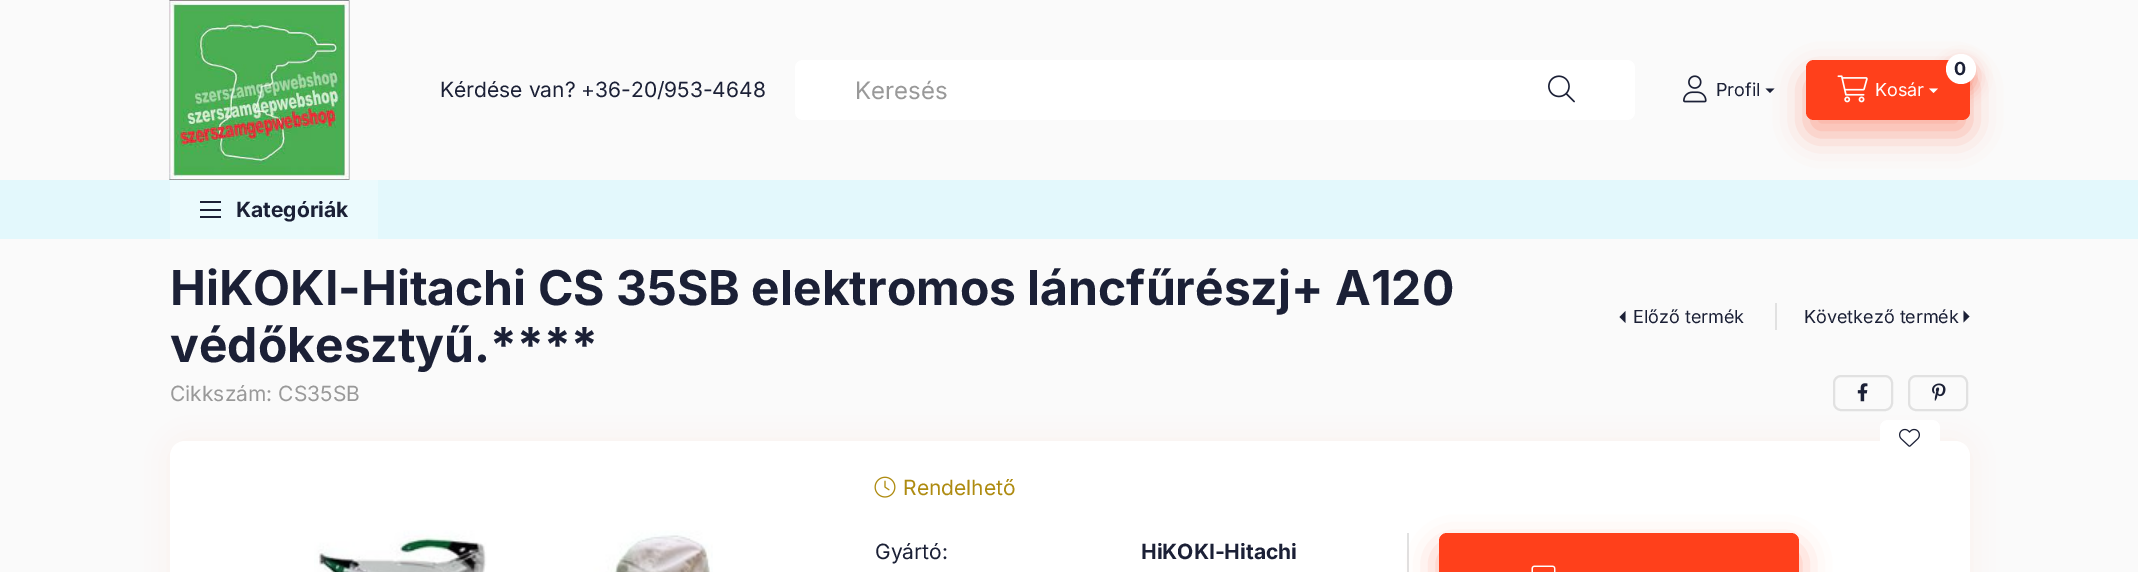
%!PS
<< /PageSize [2138 572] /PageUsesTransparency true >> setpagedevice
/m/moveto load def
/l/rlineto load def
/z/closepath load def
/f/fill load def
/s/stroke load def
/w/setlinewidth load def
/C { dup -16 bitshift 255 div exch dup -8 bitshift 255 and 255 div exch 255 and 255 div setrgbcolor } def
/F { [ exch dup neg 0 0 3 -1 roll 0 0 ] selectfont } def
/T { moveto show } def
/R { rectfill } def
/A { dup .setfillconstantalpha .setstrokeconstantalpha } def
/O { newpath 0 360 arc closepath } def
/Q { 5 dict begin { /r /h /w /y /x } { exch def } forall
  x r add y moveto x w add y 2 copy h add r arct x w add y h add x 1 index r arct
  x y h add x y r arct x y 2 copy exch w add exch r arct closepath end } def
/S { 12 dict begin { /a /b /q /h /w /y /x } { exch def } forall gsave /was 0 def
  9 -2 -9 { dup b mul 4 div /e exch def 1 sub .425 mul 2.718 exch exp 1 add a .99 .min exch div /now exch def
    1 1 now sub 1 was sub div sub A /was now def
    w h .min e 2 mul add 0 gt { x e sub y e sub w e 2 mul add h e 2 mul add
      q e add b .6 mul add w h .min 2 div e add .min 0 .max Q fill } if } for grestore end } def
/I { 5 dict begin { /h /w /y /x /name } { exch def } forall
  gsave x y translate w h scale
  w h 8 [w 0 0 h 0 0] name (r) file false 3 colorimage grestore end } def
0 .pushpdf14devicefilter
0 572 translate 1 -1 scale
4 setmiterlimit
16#FAFAFA C
0 0 2138 572 R
(1.rgb) 169 0 181 180 I
/Inter-Regular 21 F
16#1B2036 C
(Kérdése van? +36-20/953-4648) 440 97 T
16#FFFFFF C
795 60 840 60 8 Q f
/Inter-Regular 24 F
16#999999 C
(Keresés) 855 99 T
(2.rgb) 1548 75 27 28 I
(3.rgb) 1683 75 24 28 I
/Inter-Regular 18 F
16#1B2036 C
(Profil) 1716 96 T
16#E3F8FC C
0 180 2138 59 R
16#FF401B C
1806 75 164 60 8 15 .4 S
16#1B2036 C
1765.5 88.5 m 9 0 l -4.5 4.5 l z f
16#FF401B C
1806 60 164 60 8 Q f
1946 62 30 30 15 7.5 .4 S
16#FFFFFF C
1961 69 15 O f
/Inter-Bold 18 F
16#1B2036 C
(0) 1954 75 T
(4.rgb) 1837 75 31 28 I
/Inter-Regular 18 F
16#FFFFFF C
(Kosár) 1875 96 T
1929 88.5 m 9 0 l -4.5 4.5 l z f
16#EBFAFD C
170 180 208 59 R
16#1B2036 C
200 201 21 2 R
200 209 21 2 R
200 216 21 2 R
/Inter-Bold 21 F
(Kategóriák) 236 217 T
/Inter-Bold 48 F
(HiKOKI-Hitachi CS 35SB elektromos láncfűrészj+ A120) 170 305 T
(védőkesztyű.****) 170 362 T
1625.5 323 m 0 -12 l -6 6 l z f
/Inter-Regular 18 F
(Előző termék) 1633 323 T
16#E1E1E1 C
1775 303 2 27 R
16#1B2036 C
(Következő termék) 1804 323 T
1963.5 322.5 m 0 -12 l 6 6 l z f
/Inter-Regular 21 F
16#999999 C
(Cikkszám: CS35SB) 170 401 T
16#E1E1E1 C
2 w
1834 376 58 34 7 Q s
(5.rgb) 1857 383 11 19 I
1909 376 58 34 7 Q s
(6.rgb) 1932 383 14 18 I
16#FF401B C
170 441 1800 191 15 15 .05 S
16#FFFFFF C
170 441 1800 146 15 Q f
1880 420 60 36 8 Q f
(7.rgb) 1899 428 21 19 I
(8.rgb) 314 530 399 42 I
(9.rgb) 874 476 22 22 I
16#AE8B10 C
(Rendelhető) 903 495 T
16#1B2036 C
(Gyártó:) 875 559 T
/Inter-Bold 21 F
(HiKOKI-Hitachi) 1141 559 T
16#E1E1E1 C
1407 533 2 39 R
16#FF401B C
1439 548 360 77 8 15 .4 S
1439 533 360 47 8 Q f
(10.rgb) 1531 565 25 7 I
.poppdf14devicefilter showpage
